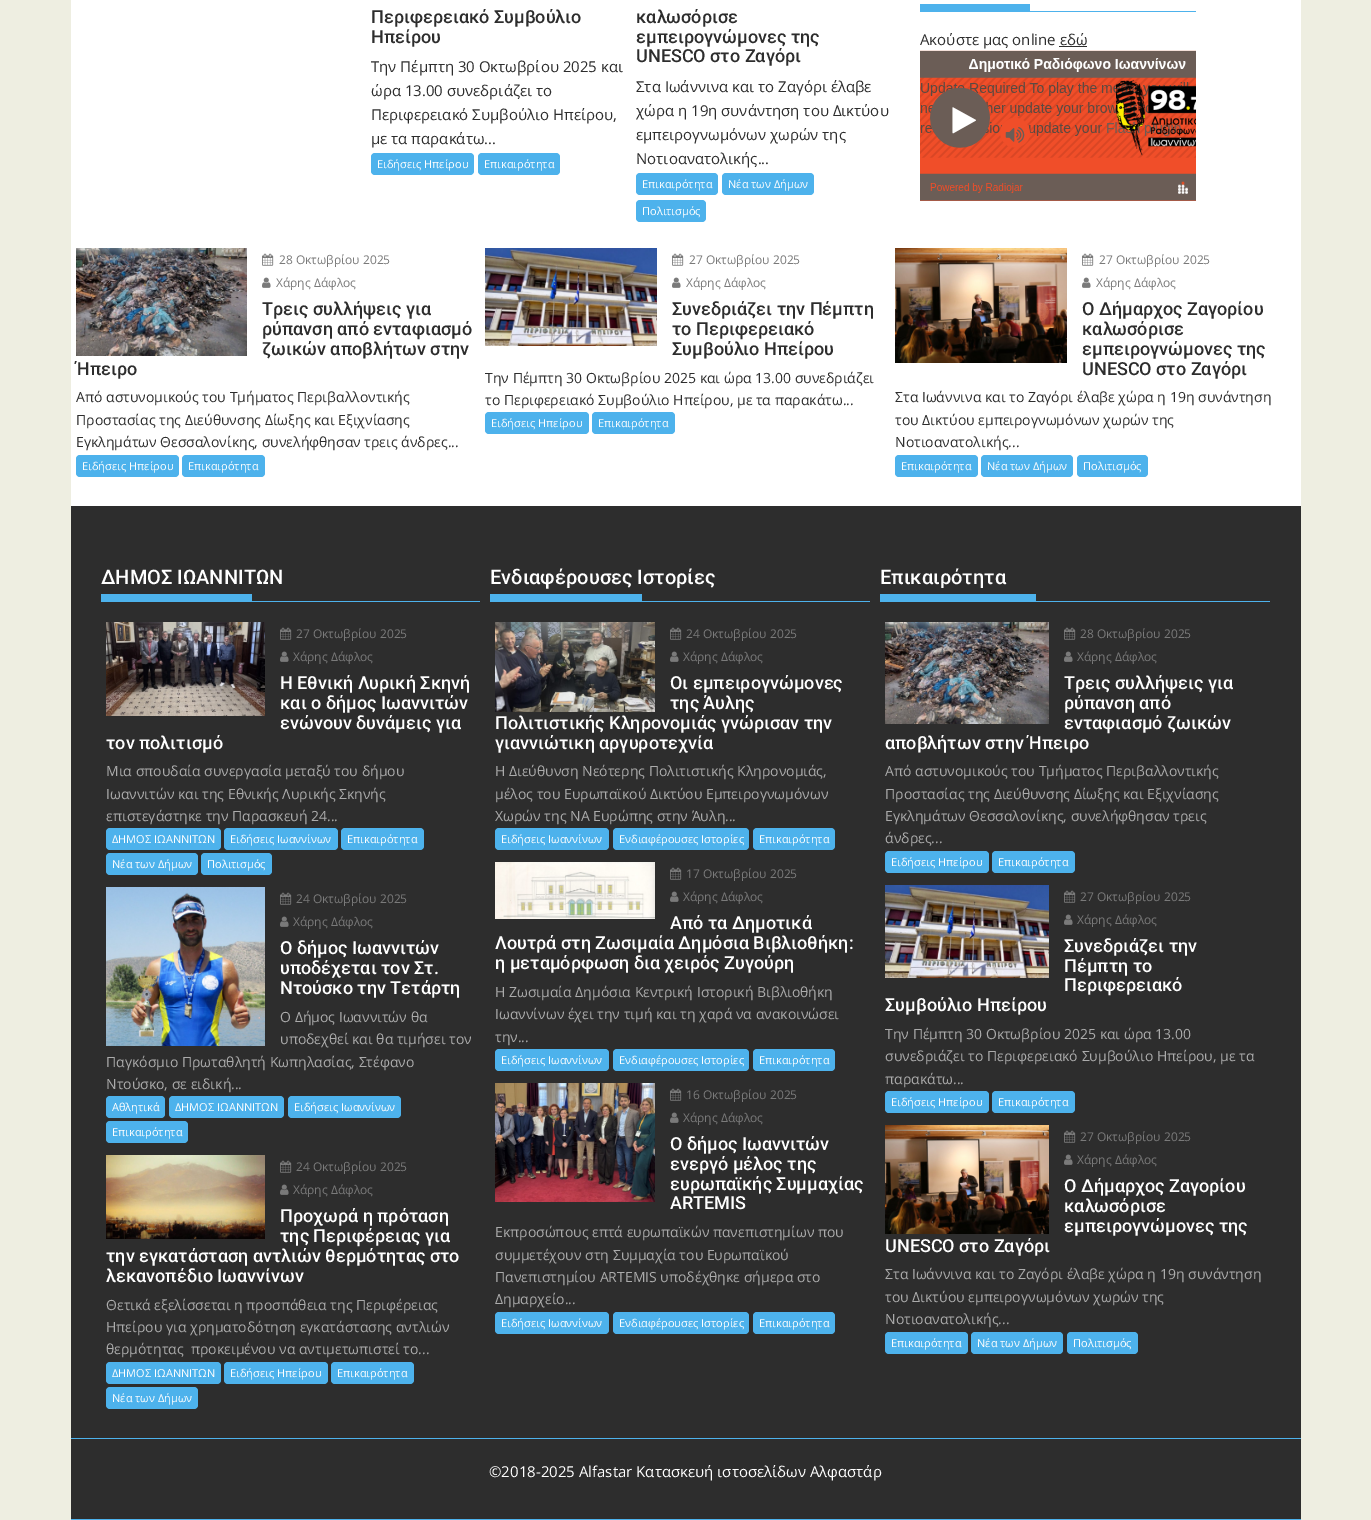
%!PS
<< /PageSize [1371 1520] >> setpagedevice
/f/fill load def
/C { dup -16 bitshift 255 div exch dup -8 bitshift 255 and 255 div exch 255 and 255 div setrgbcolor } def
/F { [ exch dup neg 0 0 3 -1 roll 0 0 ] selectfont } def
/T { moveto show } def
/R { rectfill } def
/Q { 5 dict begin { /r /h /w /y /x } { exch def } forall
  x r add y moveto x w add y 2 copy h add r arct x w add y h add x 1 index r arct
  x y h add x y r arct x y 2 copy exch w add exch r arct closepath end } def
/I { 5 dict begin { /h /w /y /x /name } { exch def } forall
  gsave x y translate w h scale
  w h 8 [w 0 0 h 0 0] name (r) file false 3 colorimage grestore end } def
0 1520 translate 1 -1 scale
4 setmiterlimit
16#EEEEE1 C
0 0 1371 1520 R
16#FFFFFF C
71 0 1230 506 R
/Roboto-Medium 18 F
16#2D2D2D C
(Περιφερειακό Συμβούλιο) 371 23 T
(Ηπείρου) 371 43 T
/OpenSans-Regular 15 F
(Την Πέμπτη 30 Οκτωβρίου 2025 και) 371 72 T
(ώρα 13.00 συνεδριάζει το) 371 96 T
(Περιφερειακό Συμβούλιο Ηπείρου,) 371 120 T
(με τα παρακάτω...) 371 144 T
16#4DB2EC C
371 153 103 22 4 Q f
/OpenSans-Regular 11 F
16#FFFFFF C
(Ειδήσεις Ηπείρου) 377 168 T
16#4DB2EC C
478 153 82 22 4 Q f
16#FFFFFF C
(Επικαιρότητα) 484 168 T
/Roboto-Medium 18 F
16#2D2D2D C
(καλωσόρισε) 636 23 T
(εμπειρογνώμονες της) 636 43 T
(UNESCO στο Ζαγόρι) 636 62 T
/OpenSans-Regular 15 F
(Στα Ιωάννινα και το Ζαγόρι έλαβε) 636 92 T
(χώρα η 19η συνάντηση του Δικτύου) 636 116 T
(εμπειρογνωμόνων χωρών της) 636 140 T
(Νοτιοανατολικής...) 636 164 T
16#4DB2EC C
636 173 82 22 4 Q f
/OpenSans-Regular 11 F
16#FFFFFF C
(Επικαιρότητα) 642 188 T
16#4DB2EC C
722 173 92 22 4 Q f
16#FFFFFF C
(Νέα των Δήμων) 728 188 T
16#4DB2EC C
636 200 70 22 4 Q f
16#FFFFFF C
(Πολιτισμός) 642 215 T
16#4DB2EC C
920 11 276 1 R
920 4 110 7 R
/OpenSans-Regular 15 F
16#2D2D2D C
(Ακούστε μας online εδώ) 920 45 T
1059 46 28 1 R
(1.rgb) 920 50 276 151 I
(2.rgb) 76 248 171 108 I
(3.rgb) 262 253 12 13 I
/OpenSans-Regular 12 F
16#7A7A7A C
(28 Οκτωβρίου 2025) 279 264 T
(4.rgb) 262 277 9 11 I
(Χάρης Δάφλος) 276 287 T
/Roboto-Medium 18 F
16#2D2D2D C
(Τρεις συλλήψεις για) 262 315 T
(ρύπανση από ενταφιασμό) 262 335 T
(ζωικών αποβλήτων στην) 262 355 T
(Ήπειρο) 76 375 T
/OpenSans-Regular 14 F
(Από αστυνομικούς του Τμήματος Περιβαλλοντικής) 76 402 T
(Προστασίας της Διεύθυνσης Δίωξης και Εξιχνίασης) 76 425 T
(Εγκλημάτων Θεσσαλονίκης, συνελήφθησαν τρεις άνδρες...) 76 447 T
16#4DB2EC C
76 455 103 22 4 Q f
/OpenSans-Regular 11 F
16#FFFFFF C
(Ειδήσεις Ηπείρου) 82 470 T
16#4DB2EC C
182 455 83 22 4 Q f
16#FFFFFF C
(Επικαιρότητα) 188 470 T
(5.rgb) 485 248 172 98 I
(3.rgb) 672 253 12 13 I
/OpenSans-Regular 12 F
16#7A7A7A C
(27 Οκτωβρίου 2025) 689 264 T
(4.rgb) 672 277 9 11 I
(Χάρης Δάφλος) 686 287 T
/Roboto-Medium 18 F
16#2D2D2D C
(Συνεδριάζει την Πέμπτη) 672 315 T
(το Περιφερειακό) 672 335 T
(Συμβούλιο Ηπείρου) 672 355 T
/OpenSans-Regular 14 F
(Την Πέμπτη 30 Οκτωβρίου 2025 και ώρα 13.00 συνεδριάζει) 485 383 T
(το Περιφερειακό Συμβούλιο Ηπείρου, με τα παρακάτω...) 485 405 T
16#4DB2EC C
485 412 104 22 4 Q f
/OpenSans-Regular 11 F
16#FFFFFF C
(Ειδήσεις Ηπείρου) 491 427 T
16#4DB2EC C
592 412 83 22 4 Q f
16#FFFFFF C
(Επικαιρότητα) 598 427 T
(6.rgb) 895 248 172 115 I
(3.rgb) 1082 253 12 13 I
/OpenSans-Regular 12 F
16#7A7A7A C
(27 Οκτωβρίου 2025) 1099 264 T
(4.rgb) 1082 277 9 11 I
(Χάρης Δάφλος) 1096 287 T
/Roboto-Medium 18 F
16#2D2D2D C
(Ο Δήμαρχος Ζαγορίου) 1082 315 T
(καλωσόρισε) 1082 335 T
(εμπειρογνώμονες της) 1082 355 T
(UNESCO στο Ζαγόρι) 1082 375 T
/OpenSans-Regular 14 F
(Στα Ιωάννινα και το Ζαγόρι έλαβε χώρα η 19η συνάντηση) 895 402 T
(του Δικτύου εμπειρογνωμόνων χωρών της) 895 425 T
(Νοτιοανατολικής...) 895 447 T
16#4DB2EC C
895 455 83 22 4 Q f
/OpenSans-Regular 11 F
16#FFFFFF C
(Επικαιρότητα) 901 470 T
16#4DB2EC C
981 455 92 22 4 Q f
16#FFFFFF C
(Νέα των Δήμων) 987 470 T
16#4DB2EC C
1077 455 71 22 4 Q f
16#FFFFFF C
(Πολιτισμός) 1083 470 T
16#2D2D2D C
71 506 1230 1013 R
16#4DB2EC C
71 1519 1230 1 R
101 601 379 1 R
/Roboto-Medium 20 F
16#FFFFFF C
(ΔΗΜΟΣ ΙΩΑΝΝΙΤΩΝ) 101 584 T
16#4DB2EC C
101 594 151 7 R
(7.rgb) 106 622 159 94 I
(8.rgb) 280 627 12 13 I
/OpenSans-Regular 12 F
16#7A7A7A C
(27 Οκτωβρίου 2025) 296 638 T
(9.rgb) 280 651 9 11 I
(Χάρης Δάφλος) 293 661 T
/Roboto-Medium 18 F
16#FFFFFF C
(Η Εθνική Λυρική Σκηνή) 280 689 T
(και ο δήμος Ιωαννιτών) 280 709 T
(ενώνουν δυνάμεις για) 280 729 T
(τον πολιτισμό) 106 749 T
/OpenSans-Regular 14 F
16#ABABAB C
(Μια σπουδαία συνεργασία μεταξύ του δήμου) 106 776 T
(Ιωαννιτών και της Εθνικής Λυρικής Σκηνής) 106 799 T
(επιστεγάστηκε την Παρασκευή 24...) 106 821 T
16#4DB2EC C
106 828 115 22 4 Q f
/OpenSans-Regular 11 F
16#FFFFFF C
(ΔΗΜΟΣ ΙΩΑΝΝΙΤΩΝ) 112 843 T
16#4DB2EC C
224 828 114 22 4 Q f
16#FFFFFF C
(Ειδήσεις Ιωαννίνων) 230 843 T
16#4DB2EC C
341 828 83 22 4 Q f
16#FFFFFF C
(Επικαιρότητα) 347 843 T
16#4DB2EC C
106 853 92 22 4 Q f
16#FFFFFF C
(Νέα των Δήμων) 112 868 T
16#4DB2EC C
201 853 71 22 4 Q f
16#FFFFFF C
(Πολιτισμός) 207 868 T
(10.rgb) 106 887 159 159 I
(8.rgb) 280 892 12 13 I
/OpenSans-Regular 12 F
16#7A7A7A C
(24 Οκτωβρίου 2025) 296 903 T
(9.rgb) 280 916 9 11 I
(Χάρης Δάφλος) 293 926 T
/Roboto-Medium 18 F
16#FFFFFF C
(Ο δήμος Ιωαννιτών) 280 954 T
(υποδέχεται τον Στ.) 280 974 T
(Ντούσκο την Τετάρτη) 280 994 T
/OpenSans-Regular 14 F
16#ABABAB C
(Ο Δήμος Ιωαννιτών θα) 280 1022 T
(υποδεχθεί και θα τιμήσει τον) 280 1044 T
(Παγκόσμιο Πρωταθλητή Κωπηλασίας, Στέφανο) 106 1067 T
(Ντούσκο, σε ειδική...) 106 1089 T
16#4DB2EC C
106 1096 59 22 4 Q f
/OpenSans-Regular 11 F
16#FFFFFF C
(Αθλητικά) 112 1111 T
16#4DB2EC C
169 1096 115 22 4 Q f
16#FFFFFF C
(ΔΗΜΟΣ ΙΩΑΝΝΙΤΩΝ) 175 1111 T
16#4DB2EC C
288 1096 113 22 4 Q f
16#FFFFFF C
(Ειδήσεις Ιωαννίνων) 294 1111 T
16#4DB2EC C
106 1121 82 22 4 Q f
16#FFFFFF C
(Επικαιρότητα) 112 1136 T
(11.rgb) 106 1155 159 84 I
(8.rgb) 280 1160 12 13 I
/OpenSans-Regular 12 F
16#7A7A7A C
(24 Οκτωβρίου 2025) 296 1171 T
(9.rgb) 280 1184 9 11 I
(Χάρης Δάφλος) 293 1194 T
/Roboto-Medium 18 F
16#FFFFFF C
(Προχωρά η πρόταση) 280 1222 T
(της Περιφέρειας για) 280 1242 T
(την εγκατάσταση αντλιών θερμότητας στο) 106 1262 T
(λεκανοπέδιο Ιωαννίνων) 106 1282 T
/OpenSans-Regular 14 F
16#ABABAB C
(Θετικά εξελίσσεται η προσπάθεια της Περιφέρειας) 106 1310 T
(Ηπείρου για χρηματοδότηση εγκατάστασης αντλιών) 106 1332 T
(θερμότητας  προκειμένου να αντιμετωπιστεί το...) 106 1354 T
16#4DB2EC C
106 1362 115 22 4 Q f
/OpenSans-Regular 11 F
16#FFFFFF C
(ΔΗΜΟΣ ΙΩΑΝΝΙΤΩΝ) 112 1377 T
16#4DB2EC C
224 1362 104 22 4 Q f
16#FFFFFF C
(Ειδήσεις Ηπείρου) 230 1377 T
16#4DB2EC C
331 1362 83 22 4 Q f
16#FFFFFF C
(Επικαιρότητα) 337 1377 T
16#4DB2EC C
106 1387 92 22 4 Q f
16#FFFFFF C
(Νέα των Δήμων) 112 1402 T
16#4DB2EC C
490 601 380 1 R
/Roboto-Medium 20 F
16#FFFFFF C
(Ενδιαφέρουσες Ιστορίες) 490 584 T
16#4DB2EC C
490 594 152 7 R
(12.rgb) 495 622 160 90 I
(8.rgb) 670 627 12 13 I
/OpenSans-Regular 12 F
16#7A7A7A C
(24 Οκτωβρίου 2025) 686 638 T
(9.rgb) 670 651 9 11 I
(Χάρης Δάφλος) 683 661 T
/Roboto-Medium 18 F
16#FFFFFF C
(Οι εμπειρογνώμονες) 670 689 T
(της Άυλης) 670 709 T
(Πολιτιστικής Κληρονομιάς γνώρισαν την) 495 729 T
(γιαννιώτικη αργυροτεχνία) 495 749 T
/OpenSans-Regular 14 F
16#ABABAB C
(Η Διεύθυνση Νεότερης Πολιτιστικής Κληρονομιάς,) 495 776 T
(μέλος του Ευρωπαϊκού Δικτύου Εμπειρογνωμόνων) 495 799 T
(Χωρών της ΝΑ Ευρώπης στην Άυλη...) 495 821 T
16#4DB2EC C
495 828 114 22 4 Q f
/OpenSans-Regular 11 F
16#FFFFFF C
(Ειδήσεις Ιωαννίνων) 501 843 T
16#4DB2EC C
613 828 136 22 4 Q f
16#FFFFFF C
(Ενδιαφέρουσες Ιστορίες) 619 843 T
16#4DB2EC C
753 828 82 22 4 Q f
16#FFFFFF C
(Επικαιρότητα) 759 843 T
(13.rgb) 495 862 160 57 I
(8.rgb) 670 867 12 13 I
/OpenSans-Regular 12 F
16#7A7A7A C
(17 Οκτωβρίου 2025) 686 878 T
(9.rgb) 670 891 9 11 I
(Χάρης Δάφλος) 683 901 T
/Roboto-Medium 18 F
16#FFFFFF C
(Από τα Δημοτικά) 670 929 T
(Λουτρά στη Ζωσιμαία Δημόσια Βιβλιοθήκη:) 495 949 T
(η μεταμόρφωση δια χειρός Ζυγούρη) 495 969 T
/OpenSans-Regular 14 F
16#ABABAB C
(Η Ζωσιμαία Δημόσια Κεντρική Ιστορική Βιβλιοθήκη) 495 997 T
(Ιωαννίνων έχει την τιμή και τη χαρά να ανακοινώσει) 495 1019 T
(την...) 495 1042 T
16#4DB2EC C
495 1049 114 22 4 Q f
/OpenSans-Regular 11 F
16#FFFFFF C
(Ειδήσεις Ιωαννίνων) 501 1064 T
16#4DB2EC C
613 1049 136 22 4 Q f
16#FFFFFF C
(Ενδιαφέρουσες Ιστορίες) 619 1064 T
16#4DB2EC C
753 1049 82 22 4 Q f
16#FFFFFF C
(Επικαιρότητα) 759 1064 T
(14.rgb) 495 1083 160 119 I
(8.rgb) 670 1088 12 13 I
/OpenSans-Regular 12 F
16#7A7A7A C
(16 Οκτωβρίου 2025) 686 1099 T
(9.rgb) 670 1112 9 11 I
(Χάρης Δάφλος) 683 1122 T
/Roboto-Medium 18 F
16#FFFFFF C
(Ο δήμος Ιωαννιτών) 670 1150 T
(ενεργό μέλος της) 670 1170 T
(ευρωπαϊκής Συμμαχίας) 670 1190 T
(ARTEMIS) 670 1209 T
/OpenSans-Regular 14 F
16#ABABAB C
(Εκπροσώπους επτά ευρωπαϊκών πανεπιστημίων που) 495 1237 T
(συμμετέχουν στη Συμμαχία του Ευρωπαϊκού) 495 1260 T
(Πανεπιστημίου ARTEMIS υποδέχθηκε σήμερα στο) 495 1282 T
(Δημαρχείο...) 495 1304 T
16#4DB2EC C
495 1312 114 22 4 Q f
/OpenSans-Regular 11 F
16#FFFFFF C
(Ειδήσεις Ιωαννίνων) 501 1327 T
16#4DB2EC C
613 1312 136 22 4 Q f
16#FFFFFF C
(Ενδιαφέρουσες Ιστορίες) 619 1327 T
16#4DB2EC C
753 1312 82 22 4 Q f
16#FFFFFF C
(Επικαιρότητα) 759 1327 T
16#4DB2EC C
880 601 390 1 R
/Roboto-Medium 20 F
16#FFFFFF C
(Επικαιρότητα) 880 584 T
16#4DB2EC C
880 594 156 7 R
(15.rgb) 885 622 164 102 I
(8.rgb) 1064 627 12 13 I
/OpenSans-Regular 12 F
16#7A7A7A C
(28 Οκτωβρίου 2025) 1080 638 T
(9.rgb) 1064 651 9 11 I
(Χάρης Δάφλος) 1077 661 T
/Roboto-Medium 18 F
16#FFFFFF C
(Τρεις συλλήψεις για) 1064 689 T
(ρύπανση από) 1064 709 T
(ενταφιασμό ζωικών) 1064 729 T
(αποβλήτων στην Ήπειρο) 885 749 T
/OpenSans-Regular 14 F
16#ABABAB C
(Από αστυνομικούς του Τμήματος Περιβαλλοντικής) 885 776 T
(Προστασίας της Διεύθυνσης Δίωξης και Εξιχνίασης) 885 799 T
(Εγκλημάτων Θεσσαλονίκης, συνελήφθησαν τρεις) 885 821 T
(άνδρες...) 885 843 T
16#4DB2EC C
885 851 104 22 4 Q f
/OpenSans-Regular 11 F
16#FFFFFF C
(Ειδήσεις Ηπείρου) 891 866 T
16#4DB2EC C
992 851 83 22 4 Q f
16#FFFFFF C
(Επικαιρότητα) 998 866 T
(16.rgb) 885 885 164 93 I
(8.rgb) 1064 890 12 13 I
/OpenSans-Regular 12 F
16#7A7A7A C
(27 Οκτωβρίου 2025) 1080 901 T
(9.rgb) 1064 914 9 11 I
(Χάρης Δάφλος) 1077 924 T
/Roboto-Medium 18 F
16#FFFFFF C
(Συνεδριάζει την) 1064 952 T
(Πέμπτη το) 1064 972 T
(Περιφερειακό) 1064 991 T
(Συμβούλιο Ηπείρου) 885 1011 T
/OpenSans-Regular 14 F
16#ABABAB C
(Την Πέμπτη 30 Οκτωβρίου 2025 και ώρα 13.00) 885 1039 T
(συνεδριάζει το Περιφερειακό Συμβούλιο Ηπείρου, με τα) 885 1061 T
(παρακάτω...) 885 1084 T
16#4DB2EC C
885 1091 104 22 4 Q f
/OpenSans-Regular 11 F
16#FFFFFF C
(Ειδήσεις Ηπείρου) 891 1106 T
16#4DB2EC C
992 1091 83 22 4 Q f
16#FFFFFF C
(Επικαιρότητα) 998 1106 T
(17.rgb) 885 1125 164 109 I
(8.rgb) 1064 1130 12 13 I
/OpenSans-Regular 12 F
16#7A7A7A C
(27 Οκτωβρίου 2025) 1080 1141 T
(9.rgb) 1064 1154 9 11 I
(Χάρης Δάφλος) 1077 1164 T
/Roboto-Medium 18 F
16#FFFFFF C
(Ο Δήμαρχος Ζαγορίου) 1064 1192 T
(καλωσόρισε) 1064 1212 T
(εμπειρογνώμονες της) 1064 1232 T
(UNESCO στο Ζαγόρι) 885 1252 T
/OpenSans-Regular 14 F
16#ABABAB C
(Στα Ιωάννινα και το Ζαγόρι έλαβε χώρα η 19η συνάντηση) 885 1279 T
(του Δικτύου εμπειρογνωμόνων χωρών της) 885 1302 T
(Νοτιοανατολικής...) 885 1324 T
16#4DB2EC C
885 1332 83 22 4 Q f
/OpenSans-Regular 11 F
16#FFFFFF C
(Επικαιρότητα) 891 1347 T
16#4DB2EC C
971 1332 92 22 4 Q f
16#FFFFFF C
(Νέα των Δήμων) 977 1347 T
16#4DB2EC C
1067 1332 71 22 4 Q f
16#FFFFFF C
(Πολιτισμός) 1073 1347 T
16#4DB2EC C
71 1438 1230 1 R
/OpenSans-Regular 15 F
16#FFFFFF C
(©2018-2025 Alfastar Κατασκευή ιστοσελίδων Αλφαστάρ) 489 1477 T
showpage
